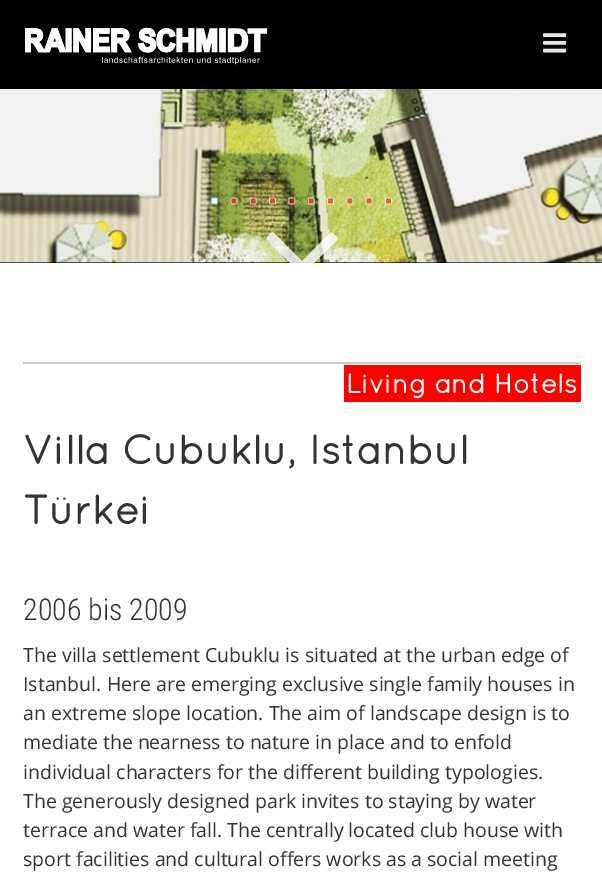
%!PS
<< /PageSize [602 877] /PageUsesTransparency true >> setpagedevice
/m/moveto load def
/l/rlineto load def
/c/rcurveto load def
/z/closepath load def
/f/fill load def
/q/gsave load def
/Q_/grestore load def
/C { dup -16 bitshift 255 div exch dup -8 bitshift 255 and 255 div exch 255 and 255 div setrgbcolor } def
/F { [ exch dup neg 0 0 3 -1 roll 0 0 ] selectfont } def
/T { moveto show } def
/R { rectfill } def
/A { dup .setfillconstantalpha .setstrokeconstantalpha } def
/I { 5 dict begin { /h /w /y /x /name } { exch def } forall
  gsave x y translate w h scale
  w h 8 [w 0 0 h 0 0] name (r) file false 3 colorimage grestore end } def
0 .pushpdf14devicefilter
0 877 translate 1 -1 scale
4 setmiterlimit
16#FFFFFF C
0 0 602 877 R
16#000000 C
0 0 602 89 R
(1.rgb) 25 27 243 38 I
(2.rgb) 543 33 24 20 I
0 262 602 1 R
(3.rgb) 0 89 602 174 I
(4.rgb) 211 197 7 8 I
(5.rgb) 230 197 8 8 I
(6.rgb) 249 197 8 8 I
(7.rgb) 269 197 7 8 I
(8.rgb) 288 197 8 8 I
(9.rgb) 308 197 7 8 I
(10.rgb) 327 197 7 8 I
(11.rgb) 346 197 8 8 I
(12.rgb) 365 197 8 8 I
(13.rgb) 385 197 7 8 I
q
0 0 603 263 rectclip
0.8 A
16#FFFFFF C
337 237 m 3 3 -5 8 -6 9 c -22 22 l -8 8 -6 8 -14 0 c -28 -28 l -1 -1 0 -3 1 -4 c 2 -2 4 -5 6 -3 c 28 28 l 28 -28 l 2 -2 5 3 7 4 c z f
Q_
16#CCCCCC C
23 362 558 2 R
16#FF0000 C
344 365 237 37 R
/Quicksand-Bold 27 F
16#FFFFFF C
(Living and Hotels) 346 393 T
/Quicksand-Bold 40.5 F
16#333333 C
(Villa Cubuklu, Istanbul) 23 464 T
(Türkei) 23 524 T
/RobotoCondensed-Light 30 F
(2006 bis 2009) 23 620 T
/OpenSans-Regular 19.5 F
(The villa settlement Cubuklu is situated at the urban edge of) 23 662 T
(Istanbul. Here are emerging exclusive single family houses in) 23 691 T
(an extreme slope location. The aim of landscape design is to) 23 720 T
(mediate the nearness to nature in place and to enfold) 23 749 T
(individual characters for the different building typologies.) 23 779 T
(The generously designed park invites to staying by water) 23 808 T
(terrace and water fall. The centrally located club house with) 23 837 T
(sport facilities and cultural offers works as a social meeting) 23 866 T
.poppdf14devicefilter showpage
